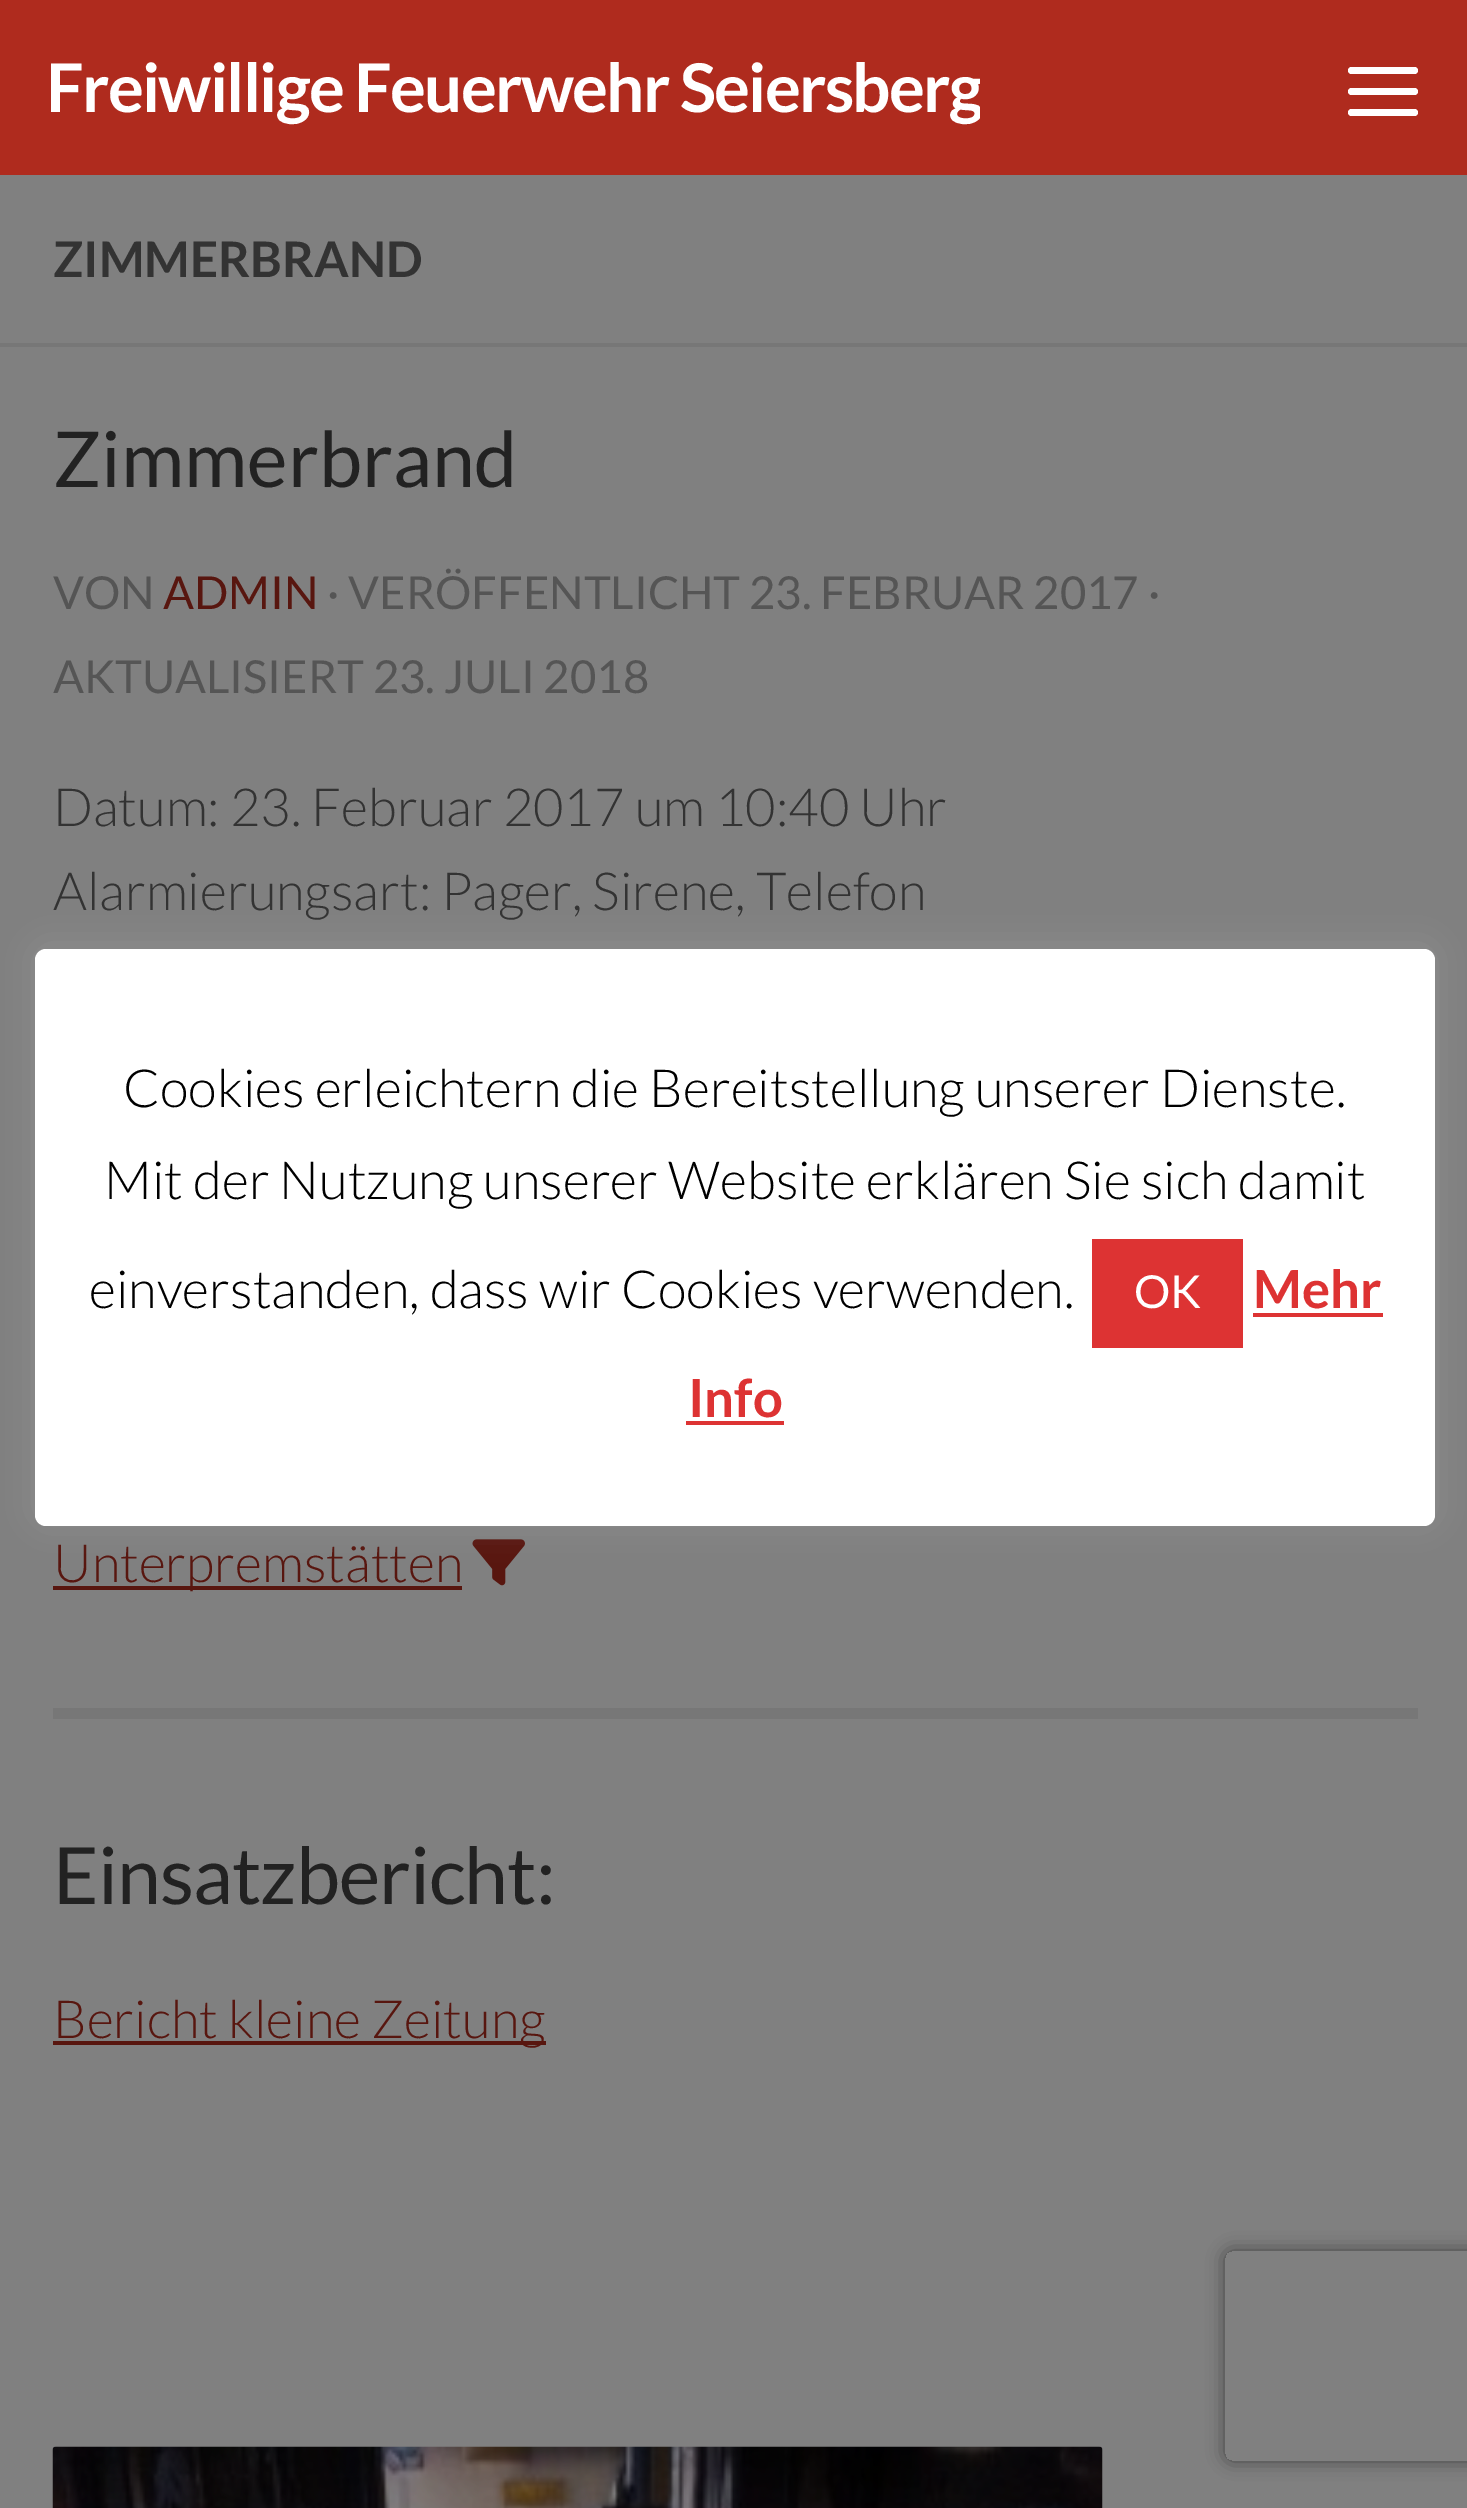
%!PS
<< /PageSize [1467 2508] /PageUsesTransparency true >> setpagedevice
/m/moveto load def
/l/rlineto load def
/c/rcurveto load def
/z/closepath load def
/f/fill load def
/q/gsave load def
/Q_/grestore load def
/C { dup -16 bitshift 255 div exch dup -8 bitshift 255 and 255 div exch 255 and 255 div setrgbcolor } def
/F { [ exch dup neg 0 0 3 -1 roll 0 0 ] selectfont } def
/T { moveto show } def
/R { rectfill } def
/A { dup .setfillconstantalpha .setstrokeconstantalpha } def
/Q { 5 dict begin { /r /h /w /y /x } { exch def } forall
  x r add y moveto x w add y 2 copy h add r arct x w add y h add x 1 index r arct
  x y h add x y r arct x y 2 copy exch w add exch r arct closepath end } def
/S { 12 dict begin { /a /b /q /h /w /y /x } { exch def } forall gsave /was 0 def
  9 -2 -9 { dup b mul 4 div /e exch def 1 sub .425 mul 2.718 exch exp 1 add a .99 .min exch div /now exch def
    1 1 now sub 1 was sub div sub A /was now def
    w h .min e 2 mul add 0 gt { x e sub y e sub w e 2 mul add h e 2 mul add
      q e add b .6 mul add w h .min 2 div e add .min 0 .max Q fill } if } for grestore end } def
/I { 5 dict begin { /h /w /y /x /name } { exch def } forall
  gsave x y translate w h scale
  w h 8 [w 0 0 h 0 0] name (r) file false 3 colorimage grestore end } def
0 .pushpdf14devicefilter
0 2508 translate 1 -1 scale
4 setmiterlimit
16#808080 C
0 0 1467 2508 R
16#AF2B1E C
0 0 1467 175 R
q
46 0 934 175 rectclip
/Lato-Bold 67.25 F
16#FFFFFF C
46 112 m -1.75 0 (Freiwillige Feuerwehr Seiersberg) ashow
Q_
16#FFFFFF C
1348 67 70 7 3.5 Q f
1348 88 70 7 3.5 Q f
1348 109 70 7 3.5 Q f
16#777777 C
0 343 1467 4 R
/Lato-Bold 49 F
16#333333 C
(ZIMMERBRAND) 53 277 T
/Lato-Regular 77 F
16#222222 C
(Zimmerbrand) 53 487 T
/Lato-Regular 45.5 F
16#555555 C
(VON) 53 609 T
16#58160F C
(ADMIN) 163 609 T
16#555555 C
(· VERÖFFENTLICHT 23. FEBRUAR 2017 ·) 327 609 T
(AKTUALISIERT 23. JULI 2018) 53 693 T
/Lato-Light 52.5 F
16#333333 C
(Datum: 23. Februar 2017 um 10:40 Uhr) 53 826 T
(Alarmierungsart: Pager, Sirene, Telefon) 53 910 T
16#58160F C
53 1586 409 4 R
(Unterpremstätten) 53 1582 T
(1.rgb) 472 1539 53 47 I
16#777777 C
53 1708 1365 11 R
/Lato-Regular 78.75 F
16#222222 C
53 1904 m -1 0 (Einsatzbericht:) ashow
16#58160F C
53 2041 493 4 R
/Lato-Light 52.5 F
(Bericht kleine Zeitung) 53 2038 T
(2.rgb) 52 2446 1051 62 I
16#ACABAB C
35 945 1400 578 11 17.5 .3 S
16#FFFFFF C
35 949 1400 577 11 Q f
16#000000 C
(Cookies erleichtern die Bereitstellung unserer Dienste.) 123 1107 T
(Mit der Nutzung unserer Website erklären Sie sich damit) 104 1199 T
(einverstanden, dass wir Cookies verwenden.) 89 1308 T
16#DD3333 C
1092 1239 151 109 R
/Lato-Regular 45.5 F
16#FFFFFF C
(OK) 1134 1308 T
/Lato-Bold 52.5 F
16#DD3333 C
(Mehr) 1253 1308 T
1253 1313 130 4 R
(Info) 688 1417 T
686 1421 98 4 R
q
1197 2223 m 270 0 l 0 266 l -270 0 l z 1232 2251 m 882 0 l 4 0 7 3 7 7 c 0 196 l 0 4 -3 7 -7 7 c -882 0 l -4 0 -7 -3 -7 -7 c 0 -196 l 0 -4 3 -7 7 -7 c z eoclip newpath
16#404040 C
1225 2251 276 210 7 9 1 S
Q_
.poppdf14devicefilter showpage
